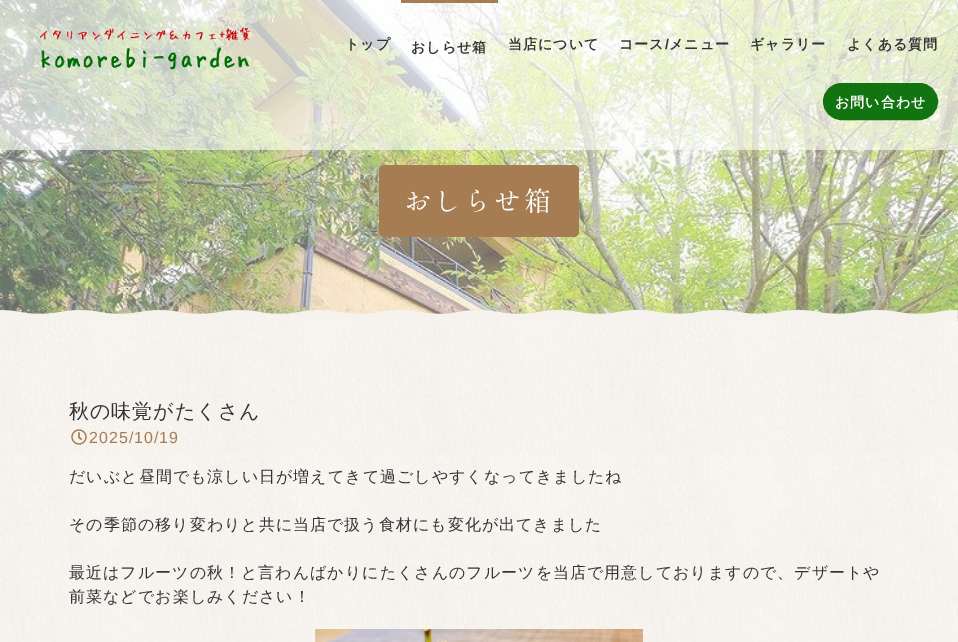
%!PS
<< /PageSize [958 642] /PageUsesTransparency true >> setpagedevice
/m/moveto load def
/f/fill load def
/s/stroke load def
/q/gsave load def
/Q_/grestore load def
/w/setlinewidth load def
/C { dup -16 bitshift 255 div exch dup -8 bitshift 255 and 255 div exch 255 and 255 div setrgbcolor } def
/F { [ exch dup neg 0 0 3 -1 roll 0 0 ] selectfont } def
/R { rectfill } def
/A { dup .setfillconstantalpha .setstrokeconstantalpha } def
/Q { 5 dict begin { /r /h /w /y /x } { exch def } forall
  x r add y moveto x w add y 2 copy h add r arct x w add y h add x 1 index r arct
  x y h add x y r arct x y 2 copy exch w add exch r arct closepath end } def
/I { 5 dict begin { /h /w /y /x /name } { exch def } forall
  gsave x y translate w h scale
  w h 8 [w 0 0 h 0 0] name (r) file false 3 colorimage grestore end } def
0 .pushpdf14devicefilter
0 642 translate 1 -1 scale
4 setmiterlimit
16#FFFFFF C
0 0 958 642 R
(1.rgb) 0 321 958 321 I
(3.rgb) 0 0 958 321 I
0.6 A
0 0 958 150 R
1 A
(2.rgb) 39 27 211 43 I
/WenQuanYiZenHei-Bold 14 F
16#333333 C
345 49 m 1 0 (トップ) ashow
16#A67C52 C
401 0 97 3 R
16#333333 C
411 52 m 1 0 (おしらせ箱) ashow
508 49 m 1 0 (当店について) ashow
619 49 m 1 0 (コース) ashow
/LiberationSans-Bold 14 F
665 49 m 1 0 (/) ashow
/WenQuanYiZenHei-Bold 14 F
669 49 m 1 0 (メニュー) ashow
750 49 m 1 0 (ギャラリー) ashow
847 49 m 1 0 (よくある質問) ashow
16#127410 C
824 84 113 35 17.5 Q q f Q_
2 w
s
16#FFFFFF C
835 107 m 1 0 (お問い合わせ) ashow
16#A67C52 C
379 165 200 72 5 Q f
/ShipporiMincho-Regular 27 F
16#FFFFFF C
404 211 m 3 0 (おしらせ箱) ashow
(4.rgb) 0 310 958 11 I
/WenQuanYiZenHei-Medium 20 F
16#333333 C
69 418 m 1 0 (秋の味覚がたくさん) ashow
(5.rgb) 71 429 16 16 I
/LiberationSans-Regular 16 F
16#A67C52 C
89 443 m 1 0 (2025/10/19) ashow
/WenQuanYiZenHei-Medium 16 F
16#333333 C
69 482 m 1 0 (だいぶと昼間でも涼しい日が増えてきて過ごしやすくなってきましたね) ashow
69 530 m 1 0 (その季節の移り変わりと共に当店で扱う食材にも変化が出てきました) ashow
69 578 m 1 0 (最近はフルーツの秋！と言わんばかりにたくさんのフルーツを当店で用意しておりますので、デザートや) ashow
69 602 m 1 0 (前菜などでお楽しみください！) ashow
(6.rgb) 315 629 328 13 I
.poppdf14devicefilter showpage
